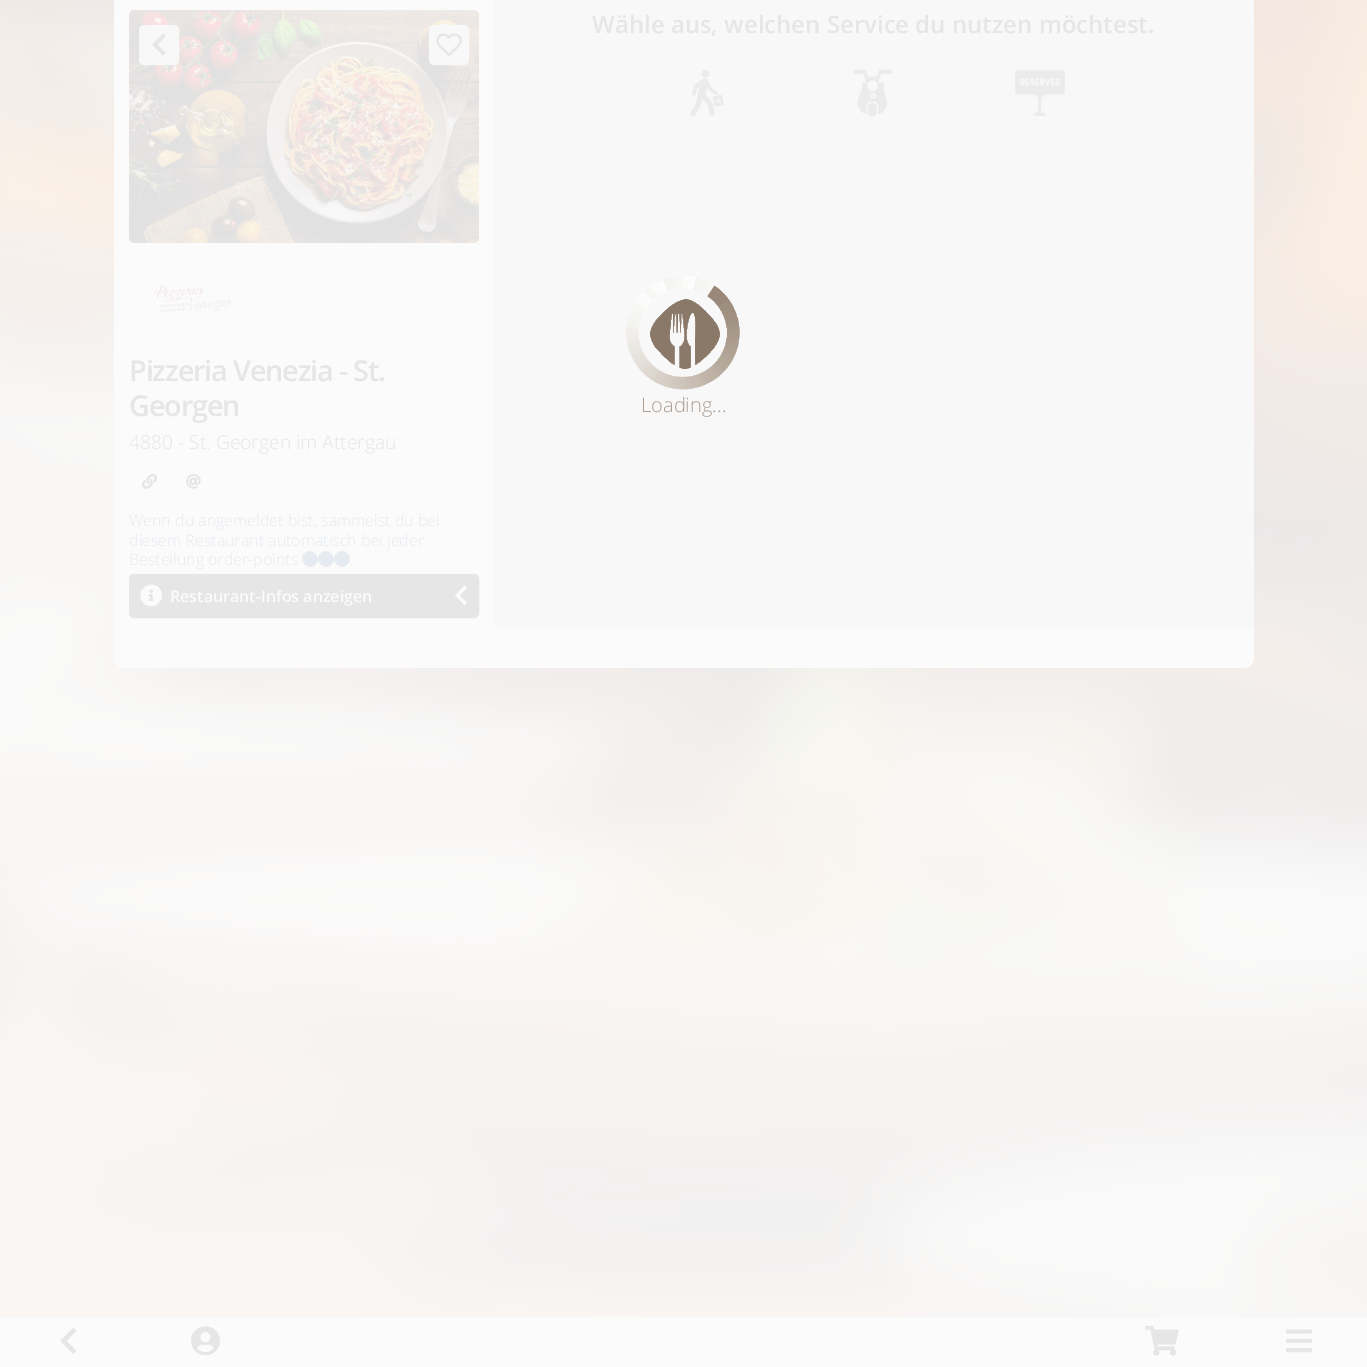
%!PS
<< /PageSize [1367 1367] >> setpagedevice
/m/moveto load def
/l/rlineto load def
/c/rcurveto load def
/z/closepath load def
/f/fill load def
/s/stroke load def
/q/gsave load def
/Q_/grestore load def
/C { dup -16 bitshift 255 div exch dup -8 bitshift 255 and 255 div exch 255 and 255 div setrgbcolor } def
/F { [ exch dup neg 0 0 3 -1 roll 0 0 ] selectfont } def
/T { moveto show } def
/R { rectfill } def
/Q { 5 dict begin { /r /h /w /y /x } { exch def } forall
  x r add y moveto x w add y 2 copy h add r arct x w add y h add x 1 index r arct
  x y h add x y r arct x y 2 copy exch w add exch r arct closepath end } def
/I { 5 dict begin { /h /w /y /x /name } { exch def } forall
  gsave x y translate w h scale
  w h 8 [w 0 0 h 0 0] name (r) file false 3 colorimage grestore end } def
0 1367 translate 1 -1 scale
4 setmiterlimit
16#FFFFFF C
0 0 1367 1367 R
(1.rgb) 0 0 1367 1317 I
16#FBFBFB C
114 0 m 1140 0 l 0 658 l 0 5.5 -4.5 10 -10 10 c -1120 0 l -5.5 0 -10 -4.5 -10 -10 c z f
16#F8F8F8 C
494 0 760 628 R
/OpenSans-SemiBold 24 F
16#E6E6E6 C
(Wähle aus, welchen Service du nutzen möchtest.) 592 33 T
(2.rgb) 690 69 35 48 I
(3.rgb) 852 69 42 51 I
(4.rgb) 1015 69 50 48 I
(5.rgb) 129 10 350 233 I
16#F8F8F8 C
139.5 25.5 39 39 4.5 Q q f Q_
s
(6.rgb) 152 33 14 23 I
429.5 25.5 39 39 4.5 Q q f Q_
s
(7.rgb) 436 33 26 23 I
(8.rgb) 155 284 78 29 I
/OpenSans-SemiBold 28.75 F
16#E6E6E6 C
129 381 m -1.15 0 (Pizzeria Venezia - St.) ashow
129 416 m -1.15 0 (Georgen) ashow
/OpenSans-Light 19.25 F
(4880 - St. Georgen im Attergau) 129 449 T
(9.rgb) 142 473 15 16 I
(10.rgb) 186 474 15 15 I
/OpenSans-Light 16 F
16#E6EBF1 C
(Wenn du angemeldet bist, sammelst du bei) 129 526 T
(diesem Restaurant automatisch bei jeder) 129 546 T
(Bestellung order-points) 129 565 T
304.5 553.5 m 7 -7 18 4 11 11 c -7 7 -18 -4 -11 -11 c z 320.5 553.5 m 7 -7 18 4 11 11 c -7 7 -18 -4 -11 -11 c z 336.5 553.5 m 7 -7 18 4 11 11 c -7 7 -18 -4 -11 -11 c z f
(.) 350 565 T
16#E6E6E6 C
129.5 574.5 349 43 4.5 Q q f Q_
s
(11.rgb) 140 584 23 23 I
/OpenSans-SemiBold 16 F
16#FBFBFB C
(Restaurant-Infos anzeigen) 170 602 T
(12.rgb) 455 585 12 20 I
(13.rgb) 626 276 114 114 I
/OpenSans-Light 20 F
16#AD9F93 C
(Loading...) 641 412 T
16#FBFBFB C
0 1317 1367 50 R
(14.rgb) 60 1328 17 26 I
(15.rgb) 191 1326 29 30 I
(16.rgb) 1145 1325 34 31 I
(17.rgb) 1286 1329 27 24 I
showpage
